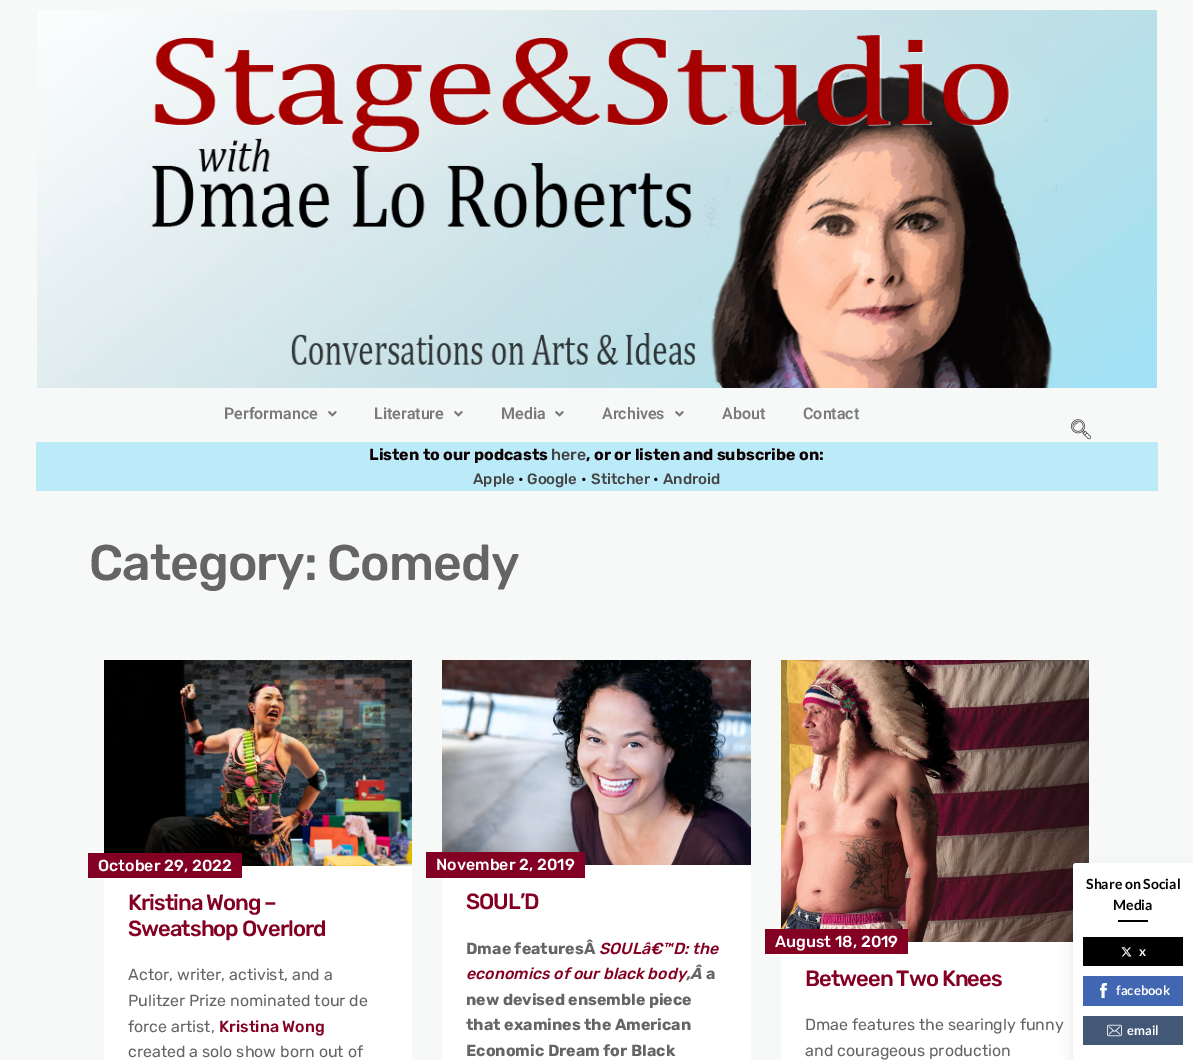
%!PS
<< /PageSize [1193 1060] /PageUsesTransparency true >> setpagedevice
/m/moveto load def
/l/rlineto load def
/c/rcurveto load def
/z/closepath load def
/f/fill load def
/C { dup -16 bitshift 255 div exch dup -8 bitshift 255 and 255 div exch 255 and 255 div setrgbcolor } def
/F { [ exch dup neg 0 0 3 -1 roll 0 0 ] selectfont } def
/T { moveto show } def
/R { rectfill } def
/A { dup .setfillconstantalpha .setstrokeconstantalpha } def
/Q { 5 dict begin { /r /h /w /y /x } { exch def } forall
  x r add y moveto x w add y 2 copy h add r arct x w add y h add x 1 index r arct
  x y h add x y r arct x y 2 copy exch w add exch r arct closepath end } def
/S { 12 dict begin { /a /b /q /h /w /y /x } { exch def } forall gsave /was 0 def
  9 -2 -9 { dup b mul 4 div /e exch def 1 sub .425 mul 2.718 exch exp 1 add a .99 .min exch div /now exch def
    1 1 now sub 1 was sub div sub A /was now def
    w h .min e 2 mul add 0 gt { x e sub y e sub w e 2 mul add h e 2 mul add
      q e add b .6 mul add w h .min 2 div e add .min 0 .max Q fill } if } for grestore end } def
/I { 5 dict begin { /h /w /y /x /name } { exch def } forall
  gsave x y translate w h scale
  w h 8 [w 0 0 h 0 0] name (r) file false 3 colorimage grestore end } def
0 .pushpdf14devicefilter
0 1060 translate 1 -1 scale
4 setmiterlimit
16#F7F8F8 C
0 0 1193 1060 R
(1.rgb) 37 10 1120 378 I
/Roboto-SemiBold 16 F
16#7A7A7A C
(Performance) 224 419 T
(2.rgb) 328 411 9 6 I
(Literature) 374 419 T
(2.rgb) 454 411 9 6 I
(Media) 501 419 T
(2.rgb) 555 411 9 6 I
(Archives) 602 419 T
(2.rgb) 675 411 9 6 I
(About) 722 419 T
(Contact) 803 419 T
(3.rgb) 1071 419 20 21 I
16#BBEBF9 C
36 442 1122 49 R
/Rubik-Bold 16 F
16#0F0101 C
(Listen to our podcasts) 369 460 T
/Rubik-Medium 16 F
16#444444 C
(here) 551 460 T
/Rubik-Bold 16 F
16#0F0101 C
(, or or listen and subscribe on:) 586 460 T
/Rubik-Medium 15 F
16#444444 C
(Apple) 473 484 T
/Rubik-Regular 15 F
16#0F0101 C
(•) 518 484 T
/Rubik-Medium 15 F
16#444444 C
(Google) 527 484 T
/Rubik-Regular 15 F
16#0F0101 C
(•) 581 484 T
/Rubik-Medium 15 F
16#444444 C
(Stitcher) 591 484 T
/Rubik-Regular 15 F
16#0F0101 C
(•) 653 484 T
/Rubik-Medium 15 F
16#444444 C
(Android) 663 484 T
/Rubik-Medium 50 F
16#656565 C
89 580 m -1 0 (Category: Comedy) ashow
16#FFFFFF C
104 866 308 194 R
(4.rgb) 104 660 308 206 I
16#840023 C
88 853 154 25 R
/Rubik-Medium 16 F
16#FFFFFF C
(October 29, 2022) 98 871 T
/Rubik-Medium 22 F
16#840023 C
128 910 m -1 0 (Kristina Wong –) ashow
128 936 m -1 0 (Sweatshop Overlord) ashow
/Rubik-Regular 16 F
16#656565 C
(Actor, writer, activist, and a) 128 980 T
(Pulitzer Prize nominated tour de) 128 1006 T
(force artist,) 128 1032 T
/Rubik-Medium 16 F
16#840023 C
(Kristina Wong) 219 1032 T
/Rubik-Regular 16 F
16#656565 C
(created a solo show born out of) 128 1057 T
16#FFFFFF C
442 865 309 195 R
(5.rgb) 442 660 309 205 I
16#840023 C
426 852 159 26 R
/Rubik-Medium 16 F
16#FFFFFF C
(November 2, 2019) 436 870 T
/Rubik-Medium 22 F
16#840023 C
466 909 m -1 0 (SOUL’D) ashow
/Rubik-Bold 16 F
16#656565 C
(Dmae featuresÂ) 466 954 T
/Rubik-MediumItalic 16 F
16#840023 C
(SOULâ€™D: the) 599 954 T
(economics of our black body) 466 979 T
/Rubik-BoldItalic 16 F
16#656565 C
(,Â) 686 979 T
/Rubik-Bold 16 F
(a) 706 979 T
(new devised ensemble piece) 466 1005 T
(that examines the American) 466 1030 T
(Economic Dream for Black) 466 1056 T
16#FFFFFF C
781 942 295 118 R
(6.rgb) 781 660 308 282 I
16#840023 C
765 929 143 25 R
/Rubik-Medium 16 F
16#FFFFFF C
(August 18, 2019) 775 947 T
/Rubik-Medium 22 F
16#840023 C
805 986 m -1 0 (Between Two Knees) ashow
/Rubik-Regular 16 F
16#656565 C
(Dmae features the searingly funny) 805 1030 T
(and courageous production) 805 1056 T
16#000000 C
1073 868 120 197 3 6.5 .1 S
16#FFFFFF C
1076 863 m 117 0 l 0 197 l -117 0 l -1.5 0 -3 -1.5 -3 -3 c 0 -191 l 0 -1.5 1.5 -3 3 -3 c z f
/Lato-Bold 14 F
16#000000 C
(Share on Social) 1086 889 T
(Media) 1113 910 T
1118 920 30 2 R
1083 937 100 29 R
(7.rgb) 1121 947 11 10 I
/Lato-Bold 13 F
16#FFFFFF C
(x) 1139 956 T
16#4267B2 C
1083 976 100 30 R
(8.rgb) 1100 983 7 15 I
16#FFFFFF C
(facebook) 1116 995 T
16#435877 C
1083 1016 100 29 R
(9.rgb) 1107 1024 15 13 I
16#FFFFFF C
(email) 1127 1035 T
.poppdf14devicefilter showpage
